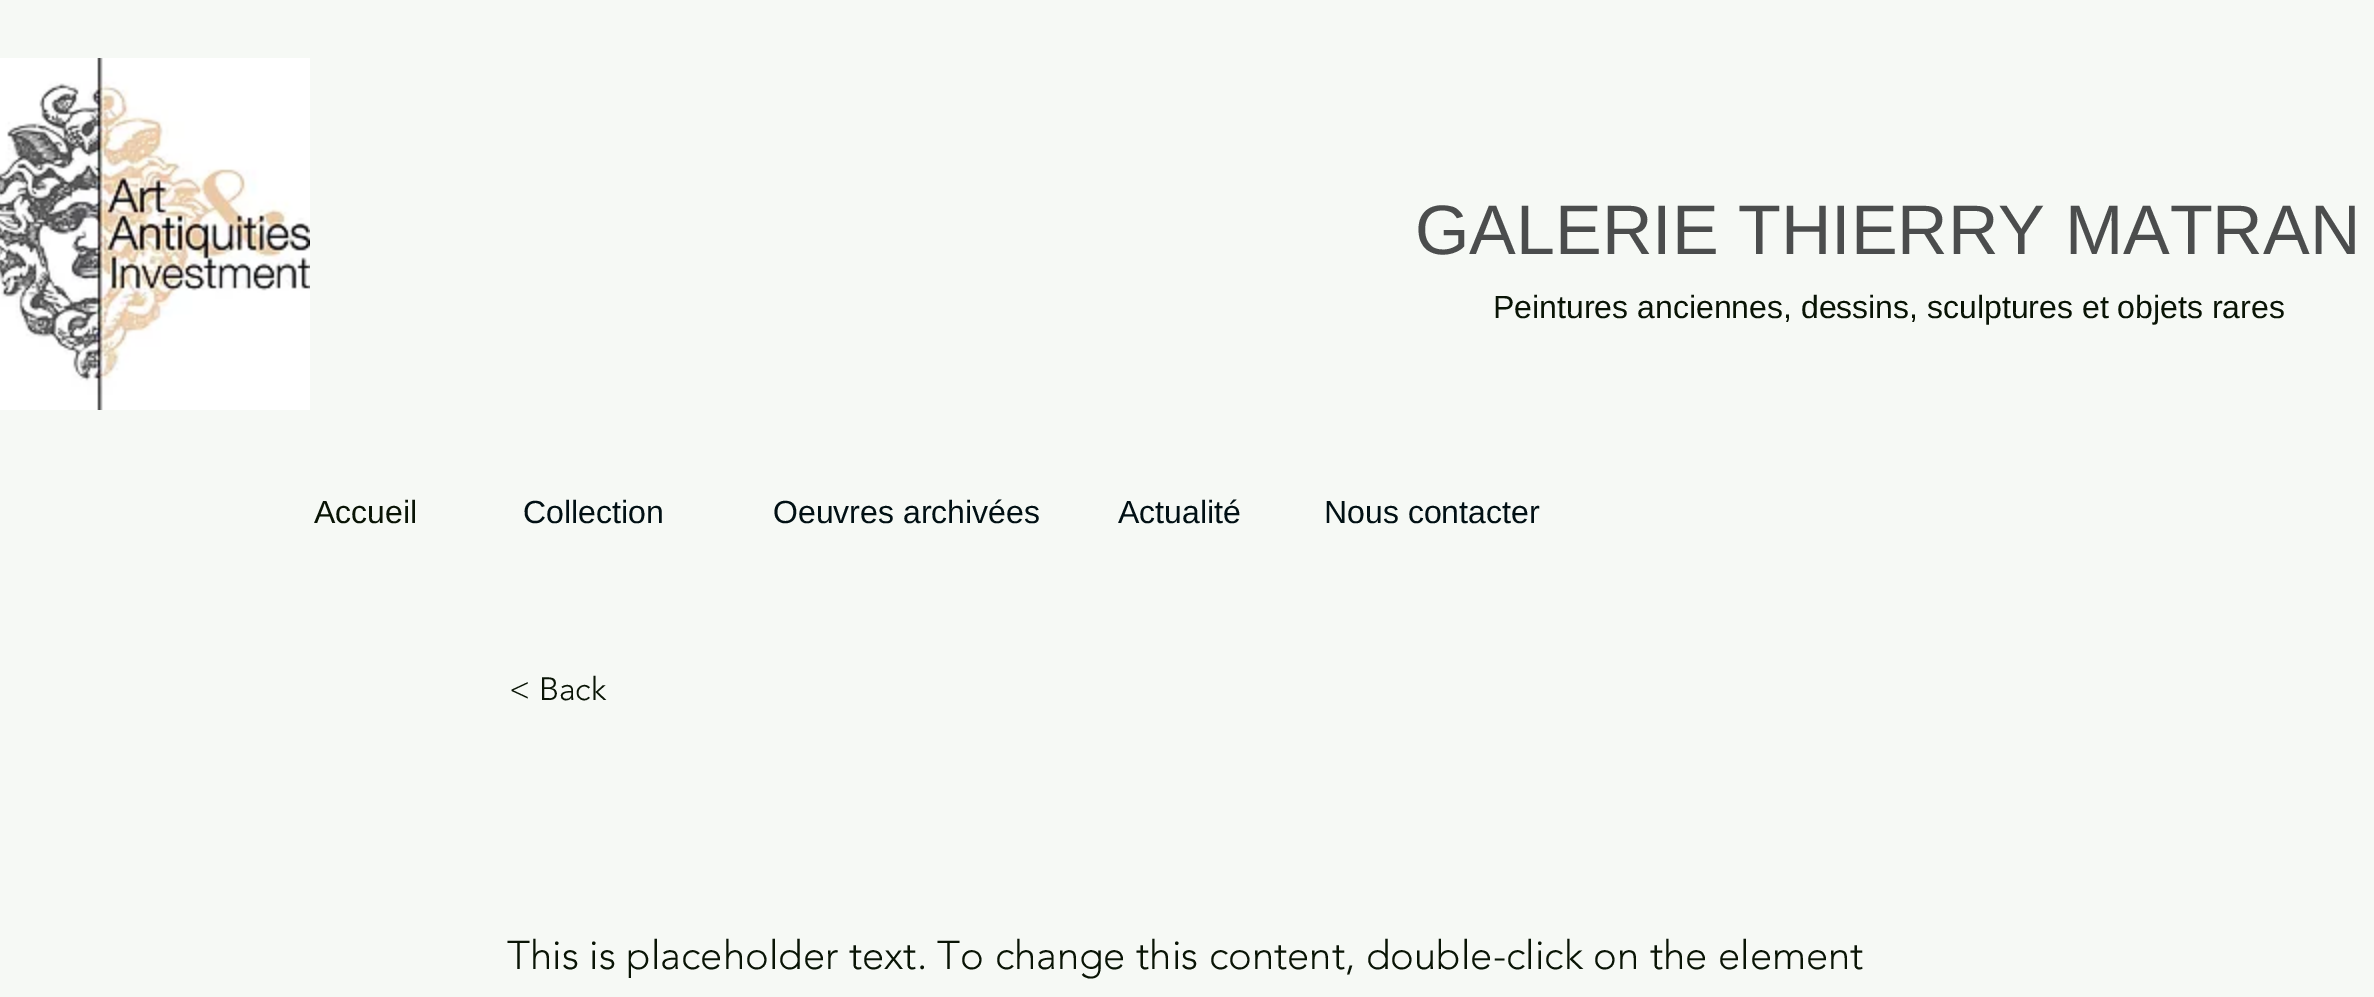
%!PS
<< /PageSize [2374 997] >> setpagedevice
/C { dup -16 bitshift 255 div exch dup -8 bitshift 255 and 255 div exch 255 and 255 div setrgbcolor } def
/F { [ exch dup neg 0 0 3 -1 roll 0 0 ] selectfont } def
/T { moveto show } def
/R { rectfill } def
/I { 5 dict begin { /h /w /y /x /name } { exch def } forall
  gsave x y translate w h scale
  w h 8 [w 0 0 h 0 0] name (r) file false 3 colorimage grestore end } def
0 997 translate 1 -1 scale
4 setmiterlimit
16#F6F9F5 C
0 0 2374 997 R
(1.rgb) 0 58 310 352 I
/LiberationSans-Regular 70 F
16#4B4D4D C
(GALERIE THIERRY MATRAN) 1415 254 T
/LiberationSans-Regular 32 F
16#091405 C
(Peintures anciennes, dessins, sculptures et objets rares) 1493 318 T
(Accueil) 314 523 T
16#011014 C
(Collection) 523 523 T
(Oeuvres archivées) 773 523 T
(Nous contacter) 1324 523 T
(Actualité) 1118 523 T
/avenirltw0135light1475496-Light 32 F
16#091405 C
(< Back) 509 700 T
/avenirltw0135light1475496-Light 40 F
(This is placeholder text. To change this content, double-click on the element) 507 969 T
showpage
